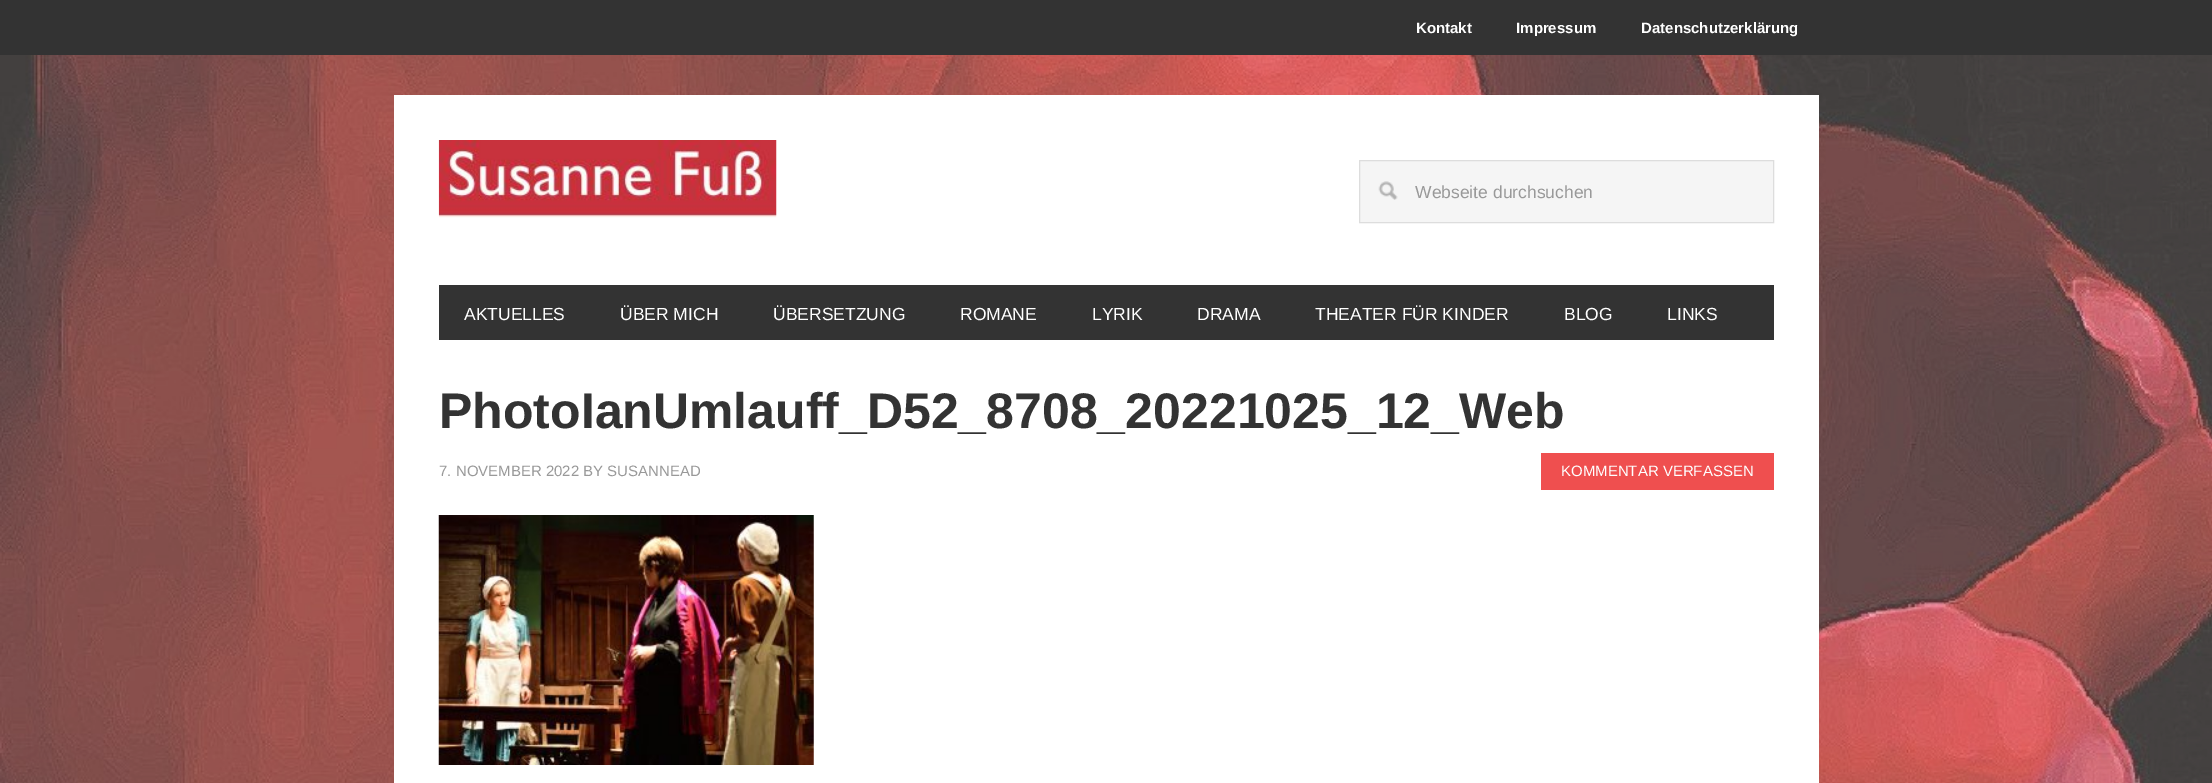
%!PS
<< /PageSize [2212 783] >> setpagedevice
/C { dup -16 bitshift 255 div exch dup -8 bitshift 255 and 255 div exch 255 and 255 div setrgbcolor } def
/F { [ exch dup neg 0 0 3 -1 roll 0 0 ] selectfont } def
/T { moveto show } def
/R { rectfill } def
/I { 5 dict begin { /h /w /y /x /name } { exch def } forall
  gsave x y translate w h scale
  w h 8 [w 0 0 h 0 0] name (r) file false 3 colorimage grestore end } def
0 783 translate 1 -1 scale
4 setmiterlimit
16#FFFFFF C
0 0 2212 783 R
16#333333 C
0 0 2212 55 R
/LiberationSans-Bold 15 F
16#FFFFFF C
(Kontakt) 1416 33 T
(Impressum) 1516 33 T
(Datenschutzerklärung) 1641 33 T
(1.rgb) 0 55 2212 728 I
394 95 1425 688 R
(2.rgb) 438 140 339 78 I
16#F5F5F5 C
1360 161 413 61 R
(3.rgb) 1378 181 20 19 I
16#DDDDDD C
1359.5 160.5 414 62 rectstroke
/LiberationSans-Regular 17.5 F
16#999999 C
(Webseite durchsuchen) 1415 198 T
16#333333 C
439 285 1335 55 R
16#FFFFFF C
(AKTUELLES) 464 320 T
(ÜBER MICH) 620 320 T
(ÜBERSETZUNG) 773 320 T
(ROMANE) 960 320 T
(LYRIK) 1092 320 T
(DRAMA) 1197 320 T
(THEATER FÜR KINDER) 1315 320 T
(BLOG) 1564 320 T
(LINKS) 1667 320 T
/LiberationSans-Bold 50 F
16#333333 C
(PhotoIanUmlauff_D52_8708_20221025_12_Web) 439 428 T
/LiberationSans-Regular 15 F
16#999999 C
(7. NOVEMBER 2022 BY SUSANNEAD) 439 476 T
16#EF4F4F C
1541 453 233 37 R
16#FFFFFF C
(KOMMENTAR VERFASSEN) 1561 476 T
(4.rgb) 438 515 376 250 I
showpage
